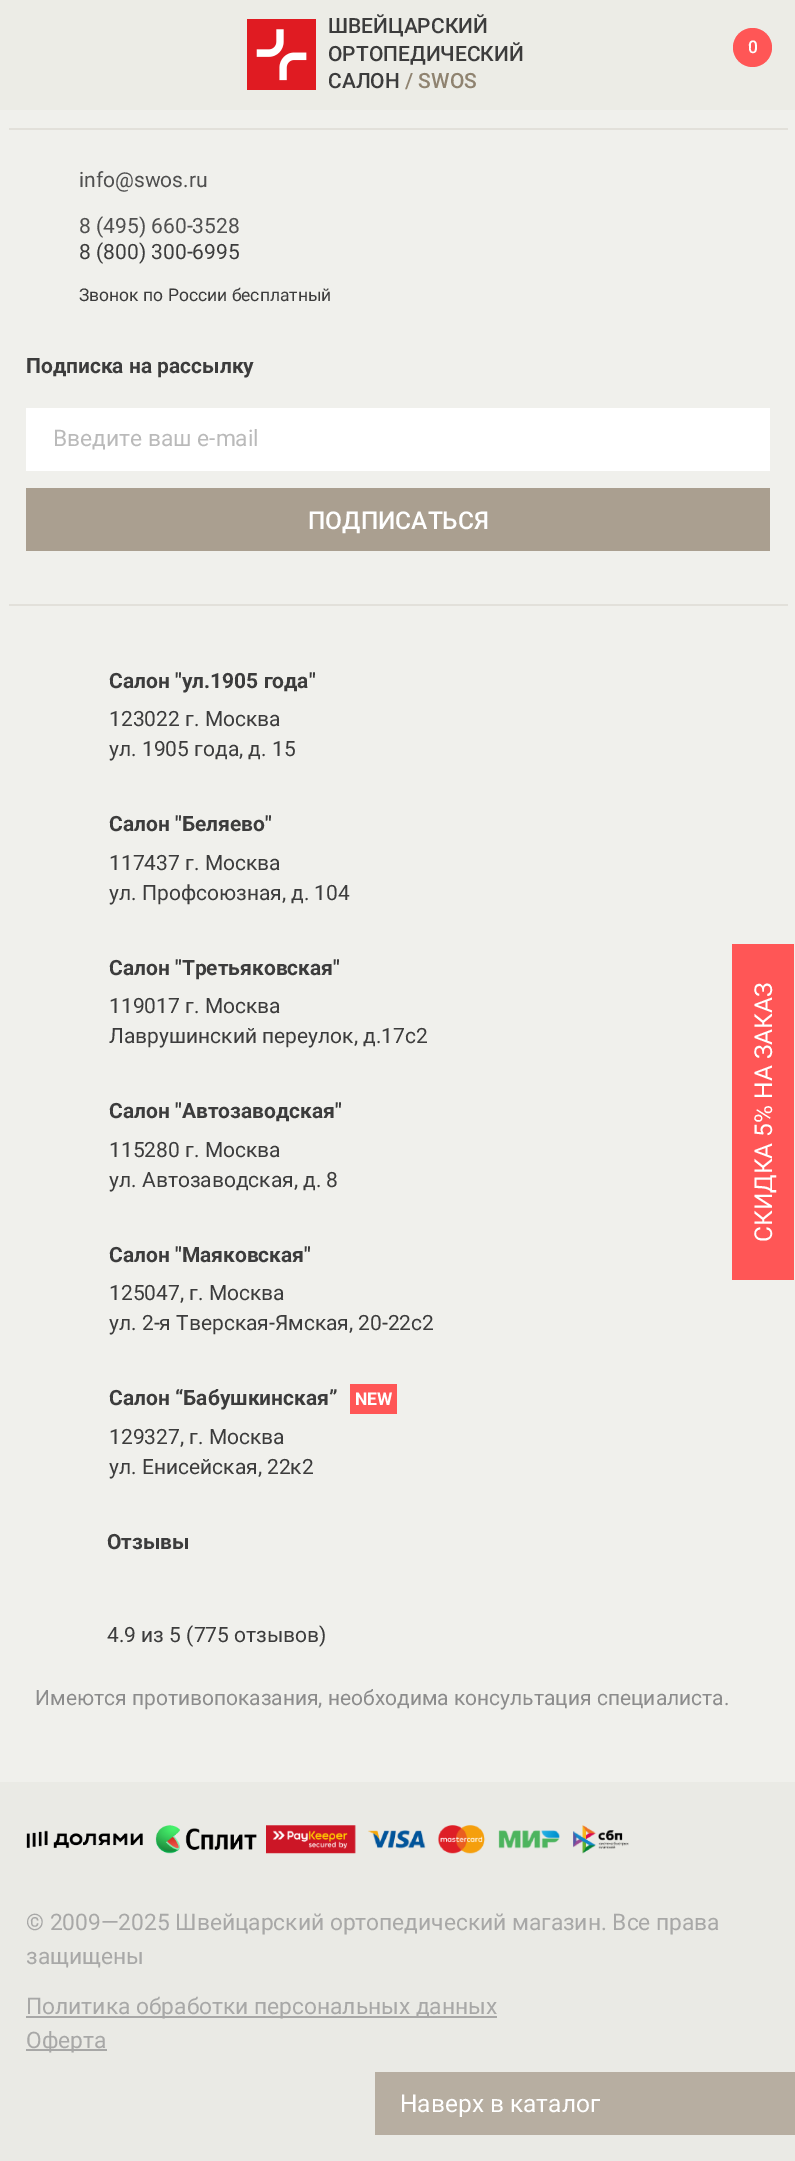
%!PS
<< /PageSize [795 2161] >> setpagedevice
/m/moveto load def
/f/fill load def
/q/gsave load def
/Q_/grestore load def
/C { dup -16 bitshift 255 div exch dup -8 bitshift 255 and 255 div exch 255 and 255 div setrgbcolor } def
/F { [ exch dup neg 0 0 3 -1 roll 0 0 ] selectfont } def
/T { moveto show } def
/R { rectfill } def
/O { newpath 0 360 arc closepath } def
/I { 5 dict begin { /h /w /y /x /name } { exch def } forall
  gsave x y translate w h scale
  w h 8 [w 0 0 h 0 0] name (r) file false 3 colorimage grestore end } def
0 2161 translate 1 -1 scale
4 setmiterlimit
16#F0F0EC C
0 0 795 2161 R
16#ECECE6 C
0 0 795 110 R
(1.rgb) 247 19 69 71 I
/Roboto-Medium 21 F
16#3C3C3C C
(ШВЕЙЦАРСКИЙ) 328 33 T
(ОРТОПЕДИЧЕСКИЙ) 328 61 T
(САЛОН) 328 88 T
16#8F8370 C
(/ SWOS) 405 88 T
16#FF5656 C
752.5 47.5 19.5 O f
/Roboto-Medium 17.5 F
16#FFFFFF C
(0) 748 53 T
16#E2E0DA C
9 128 779 2 R
9 604 779 2 R
/Roboto-Regular 21 F
16#505050 C
(info@swos.ru) 79 187 T
(8 \(495\) 660-3528) 79 233 T
16#3C3C3C C
(8 \(800\) 300-6995) 79 259 T
/Roboto-Regular 17.5 F
(Звонок по России бесплатный) 79 301 T
/Roboto-Bold 21 F
(Подписка на рассылку) 26 373 T
16#FFFFFF C
26 408 744 63 R
/Roboto-Regular 22.75 F
16#BABABA C
(Введите ваш e-mail) 53 446 T
16#AA9F90 C
26 488 744 63 R
/Roboto-Medium 24.5 F
16#FFFFFF C
(ПОДПИСАТЬСЯ) 308 529 T
/Roboto-Bold 21 F
16#3C3C3C C
(Cалон "ул.1905 года") 109 688 T
/Roboto-Regular 21 F
(123022 г. Москва) 109 726 T
(ул. 1905 года, д. 15) 109 756 T
/Roboto-Bold 21 F
(Cалон "Беляево") 109 831 T
/Roboto-Regular 21 F
(117437 г. Москва) 109 870 T
(ул. Профсоюзная, д. 104) 109 900 T
/Roboto-Bold 21 F
(Cалон "Третьяковская") 109 975 T
/Roboto-Regular 21 F
(119017 г. Москва) 109 1013 T
(Лаврушинский переулок, д.17с2) 109 1043 T
/Roboto-Bold 21 F
(Cалон "Автозаводская") 109 1118 T
/Roboto-Regular 21 F
(115280 г. Москва) 109 1157 T
(ул. Автозаводская, д. 8) 109 1187 T
/Roboto-Bold 21 F
(Cалон "Маяковская") 109 1262 T
/Roboto-Regular 21 F
(125047, г. Москва) 109 1300 T
(ул. 2-я Тверская-Ямская, 20-22с2) 109 1330 T
/Roboto-Bold 21 F
(Салон “Бабушкинская”) 109 1405 T
16#FF5656 C
350 1384 47 30 R
/Roboto-Bold 17.5 F
16#FFFFFF C
(NEW) 355 1405 T
/Roboto-Regular 21 F
16#3C3C3C C
(129327, г. Москва) 109 1444 T
(ул. Енисейская, 22к2) 109 1474 T
/Roboto-Bold 21 F
(Отзывы) 107 1549 T
/Roboto-Regular 21 F
(4.9 из 5 \(775 отзывов\)) 107 1642 T
16#8C8C8C C
(Имеются противопоказания, необходима консультация специалиста.) 35 1705 T
16#EAEAE5 C
0 1782 795 379 R
(2.rgb) 26 1825 603 29 I
/Roboto-Regular 22.75 F
16#A8A8A7 C
(© 2009—2025 Швейцарский ортопедический магазин. Все права) 26 1930 T
(защищены) 26 1964 T
26 2016 471 2 R
(Политика обработки персональных данных) 26 2014 T
26 2049 81 2 R
(Оферта) 26 2048 T
16#FF5656 C
732 944 62 336 R
/Roboto-Regular 24.5 F
16#FFFFFF C
q 772 1242 translate -90 rotate 0 0 m (СКИДКА 5% НА ЗАКАЗ) show Q_
16#B7AEA1 C
375 2072 420 63 R
16#FFFFFF C
(Наверх в каталог) 400 2112 T
showpage
